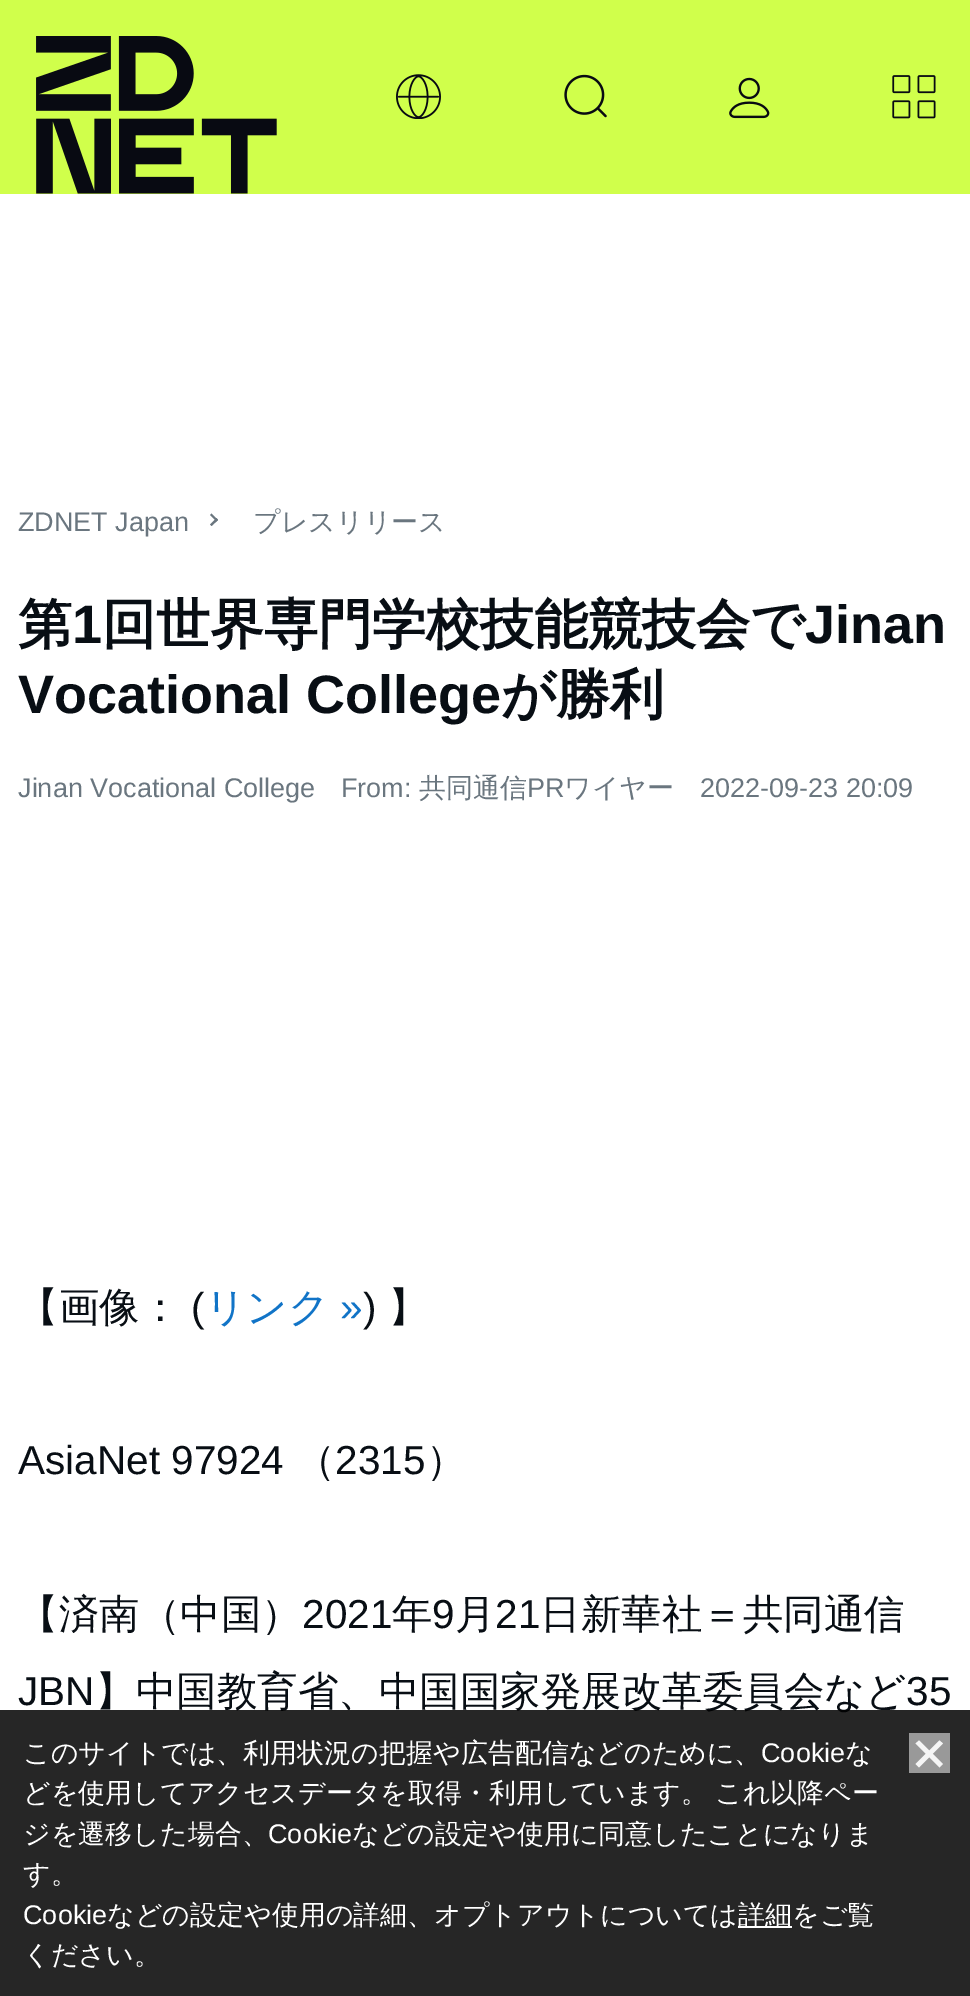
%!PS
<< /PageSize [970 1996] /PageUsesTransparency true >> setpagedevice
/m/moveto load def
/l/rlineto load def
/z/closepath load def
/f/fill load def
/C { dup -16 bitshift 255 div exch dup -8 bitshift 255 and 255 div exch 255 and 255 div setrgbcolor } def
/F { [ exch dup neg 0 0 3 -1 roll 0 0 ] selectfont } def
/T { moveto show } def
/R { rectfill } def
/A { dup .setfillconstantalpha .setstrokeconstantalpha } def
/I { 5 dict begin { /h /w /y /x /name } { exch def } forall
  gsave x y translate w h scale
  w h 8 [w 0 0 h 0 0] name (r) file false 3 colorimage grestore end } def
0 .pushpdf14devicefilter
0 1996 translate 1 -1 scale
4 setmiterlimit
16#FFFFFF C
0 0 970 1996 R
16#D0FF4B C
0 0 970 194 R
(1.rgb) 36 36 241 158 I
(2.rgb) 396 74 45 45 I
(3.rgb) 564 74 43 44 I
(4.rgb) 729 77 41 42 I
(5.rgb) 892 75 44 44 I
/LiberationSans-Regular 27 F
16#6A767F C
(ZDNET Japan) 18 531 T
211.5 513.5 m 6.5 6.5 l -1.5 1.5 l -6.5 -6.5 l z f
216.5 518 m 1.5 2 l -6.5 6 l -1.5 -1.5 l z f
/WenQuanYiZenHei-Medium 27 F
(プレスリリース) 253 531 T
/WenQuanYiZenHei-Bold 54 F
16#080E14 C
(第) 18 643 T
/LiberationSans-Bold 54 F
(1) 72 643 T
/WenQuanYiZenHei-Bold 54 F
(回世界専門学校技能競技会で) 102 643 T
/LiberationSans-Bold 54 F
(Jinan) 805 643 T
(Vocational College) 18 713 T
/WenQuanYiZenHei-Bold 54 F
(が勝利) 501 713 T
/LiberationSans-Regular 27 F
16#6A767F C
(Jinan Vocational College) 18 797 T
(From:) 341 797 T
/WenQuanYiZenHei-Medium 27 F
(共同通信) 419 797 T
/LiberationSans-Regular 27 F
(PR) 527 797 T
/WenQuanYiZenHei-Medium 27 F
(ワイヤー) 564 797 T
/LiberationSans-Regular 27 F
(2022-09-23 20:09) 700 797 T
/WenQuanYiZenHei-Medium 40.5 F
16#080E14 C
(【画像：) 18 1321 T
/LiberationSans-Regular 40.5 F
(\() 191 1321 T
/WenQuanYiZenHei-Medium 40.5 F
16#1174C7 C
(リンク) 205 1321 T
/LiberationSans-Regular 40.5 F
(») 340 1321 T
16#080E14 C
(\)) 363 1321 T
/WenQuanYiZenHei-Medium 40.5 F
(】) 388 1321 T
/LiberationSans-Regular 40.5 F
(AsiaNet 97924) 18 1474 T
/WenQuanYiZenHei-Medium 40.5 F
(（) 295 1474 T
/LiberationSans-Regular 40.5 F
(2315) 335 1474 T
/WenQuanYiZenHei-Medium 40.5 F
(）) 426 1474 T
(【済南（中国）) 18 1628 T
/LiberationSans-Regular 40.5 F
(2021) 302 1628 T
/WenQuanYiZenHei-Medium 40.5 F
(年) 392 1628 T
/LiberationSans-Regular 40.5 F
(9) 432 1628 T
/WenQuanYiZenHei-Medium 40.5 F
(月) 455 1628 T
/LiberationSans-Regular 40.5 F
(21) 495 1628 T
/WenQuanYiZenHei-Medium 40.5 F
(日新華社＝共同通信) 540 1628 T
/LiberationSans-Regular 40.5 F
(JBN) 18 1705 T
/WenQuanYiZenHei-Medium 40.5 F
(】中国教育省、中国国家発展改革委員会など) 95 1705 T
/LiberationSans-Regular 40.5 F
(35) 906 1705 T
0.85 A
16#000000 C
0 1710 970 286 R
/WenQuanYiZenHei-Medium 27 F
1 A
16#FFFFFF C
(このサイトでは、利用状況の把握や広告配信などのために、) 23 1762 T
/LiberationSans-Regular 27 F
(Cookie) 761 1762 T
/WenQuanYiZenHei-Medium 27 F
(な) 845 1762 T
16#999999 C
909 1733 41 40 R
16#F5F5F5 C
915.5 1743.5 m 3.5 -3 l 24 23.5 l -3.5 3.5 l z f
939.5 1740.5 m 3.5 3 l -24 24 l -3.5 -3.5 l z f
16#FFFFFF C
(どを使用してアクセスデータを取得・利用しています。) 23 1802 T
(これ以降ペー) 715 1802 T
(ジを遷移した場合、) 23 1843 T
/LiberationSans-Regular 27 F
(Cookie) 268 1843 T
/WenQuanYiZenHei-Medium 27 F
(などの設定や使用に同意したことになりま) 352 1843 T
(す。) 23 1883 T
/LiberationSans-Regular 27 F
(Cookie) 23 1924 T
/WenQuanYiZenHei-Medium 27 F
(などの設定や使用の詳細、オプトアウトについては) 107 1924 T
738 1926 54 2 R
(詳細をご覧) 738 1924 T
(ください。) 23 1964 T
.poppdf14devicefilter showpage
